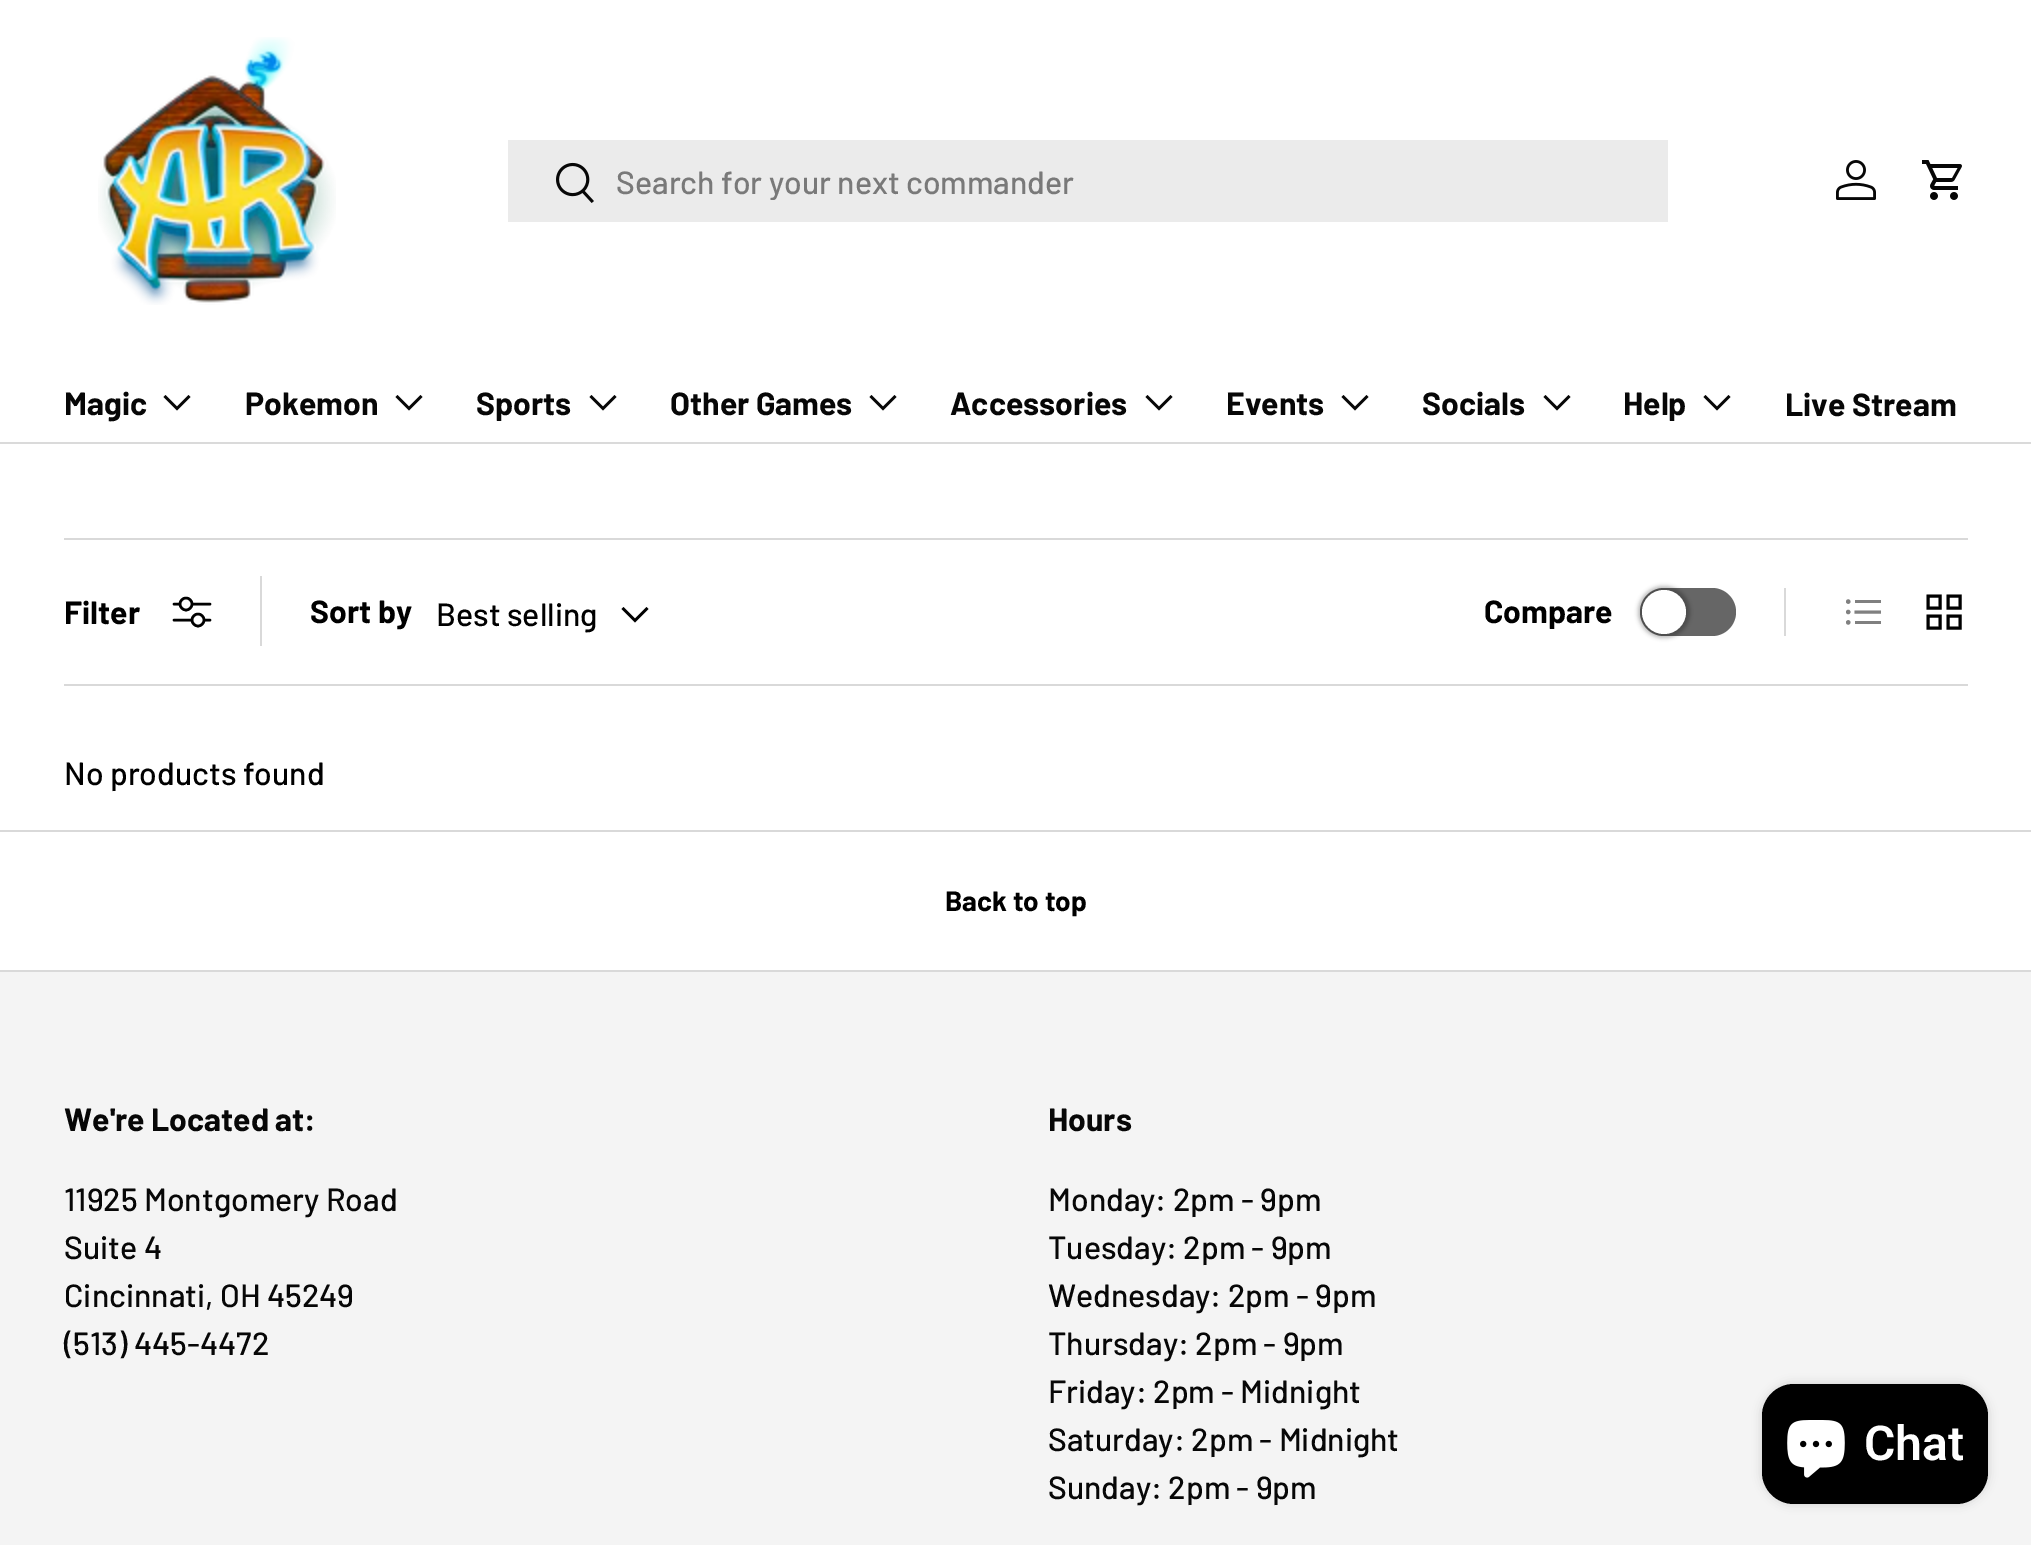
%!PS
<< /PageSize [2031 1545] /PageUsesTransparency true >> setpagedevice
/m/moveto load def
/l/rlineto load def
/z/closepath load def
/f/fill load def
/s/stroke load def
/q/gsave load def
/Q_/grestore load def
/w/setlinewidth load def
/C { dup -16 bitshift 255 div exch dup -8 bitshift 255 and 255 div exch 255 and 255 div setrgbcolor } def
/F { [ exch dup neg 0 0 3 -1 roll 0 0 ] selectfont } def
/T { moveto show } def
/R { rectfill } def
/A { dup .setfillconstantalpha .setstrokeconstantalpha } def
/O { newpath 0 360 arc closepath } def
/Q { 5 dict begin { /r /h /w /y /x } { exch def } forall
  x r add y moveto x w add y 2 copy h add r arct x w add y h add x 1 index r arct
  x y h add x y r arct x y 2 copy exch w add exch r arct closepath end } def
/S { 12 dict begin { /a /b /q /h /w /y /x } { exch def } forall gsave /was 0 def
  9 -2 -9 { dup b mul 4 div /e exch def 1 sub .425 mul 2.718 exch exp 1 add a .99 .min exch div /now exch def
    1 1 now sub 1 was sub div sub A /was now def
    w h .min e 2 mul add 0 gt { x e sub y e sub w e 2 mul add h e 2 mul add
      q e add b .6 mul add w h .min 2 div e add .min 0 .max Q fill } if } for grestore end } def
/I { 5 dict begin { /h /w /y /x /name } { exch def } forall
  gsave x y translate w h scale
  w h 8 [w 0 0 h 0 0] name (r) file false 3 colorimage grestore end } def
0 .pushpdf14devicefilter
0 1545 translate 1 -1 scale
4 setmiterlimit
16#FFFFFF C
0 0 2031 1545 R
16#DADADA C
0 442 2031 2 R
(1.rgb) 98 37 238 268 I
16#EBEBEB C
508 140 1160 82 R
(2.rgb) 556 162 38 41 I
q
616 162 944 38 rectclip
/Barlow-Medium 32 F
16#797979 C
(Search for your next commander) 616 194 T
Q_
(3.rgb) 1836 160 40 40 I
(4.rgb) 1922 160 40 40 I
/Barlow-Bold 32 F
16#070707 C
(Magic) 64 415 T
2.5 w
189.5 396 m -12.5 12.5 l -12.5 -12.5 l s
(Pokemon) 245 415 T
421.5 396 m -12.5 12.5 l -12.5 -12.5 l s
(Sports) 476 415 T
615.5 396 m -12.5 12.5 l -12.5 -12.5 l s
(Other Games) 670 415 T
895.5 396 m -12.5 12.5 l -12.5 -12.5 l s
(Accessories) 950 415 T
1171.5 396 m -12.5 12.5 l -12.5 -12.5 l s
(Events) 1226 415 T
1367.5 396 m -12.5 12.5 l -12.5 -12.5 l s
(Socials) 1422 415 T
1569.5 396 m -12.5 12.5 l -12.5 -12.5 l s
(Help) 1623 415 T
1729.5 396 m -12.5 12.5 l -12.5 -12.5 l s
(Live Stream) 1785 416 T
16#D9D9D9 C
64 538 1904 2 R
64 684 1904 2 R
16#000000 C
(Filter) 64 624 T
1 setlinecap
1 setlinejoin
174 604 m 36 0 l 174 620 m 36 0 l s
16#FFFFFF C
186 604 6 O q f Q_
16#000000 C
0 setlinecap
0 setlinejoin
s
16#FFFFFF C
198 620 6 O q f Q_
16#000000 C
s
16#D9D9D9 C
260 576 2 70 R
16#000000 C
(Sort by) 310 623 T
/Barlow-Medium 32 F
(Best selling) 436 626 T
647.5 608 m -12.5 12.5 l -12.5 -12.5 l s
16#666666 C
1640 588 96 48 24 Q f
16#000000 C
1638 586 52 52 26 2 .25 S
16#FFFFFF C
1664 612 22 O f
/Barlow-Bold 32 F
16#000000 C
(Compare) 1484 623 T
16#D9D9D9 C
1784 588 2 48 R
16#808080 C
1848.2 601.6 2.2 O f
1855 600 26 3 R
1848.2 612 2.2 O f
3 w
1854.5 612 m 26.5 0 l s
1848.2 622.4 2.2 O f
1855 621 26 3 R
16#000000 C
1928 596 m 12 0 l 0 12 l -12 0 l z 1948 596 m 12 0 l 0 12 l -12 0 l z 1928 616 m 12 0 l 0 12 l -12 0 l z 1948 616 m 12 0 l 0 12 l -12 0 l z s
/Barlow-Medium 32 F
(No products found) 64 785 T
16#D9D9D9 C
0 830 2031 2 R
0 970 2031 2 R
/Barlow-Bold 28 F
16#000000 C
(Back to top) 945 911 T
16#F4F4F4 C
0 972 2031 573 R
/Barlow-Bold 32 F
16#070707 C
(We're Located at:) 64 1131 T
/Barlow-Medium 32 F
(11925 Montgomery Road) 64 1211 T
(Suite 4) 64 1259 T
(Cincinnati, OH 45249) 64 1307 T
(\(513\) 445-4472) 64 1355 T
/Barlow-Bold 32 F
(Hours) 1048 1131 T
/Barlow-Medium 32 F
(Monday: 2pm - 9pm) 1048 1211 T
(Tuesday: 2pm - 9pm) 1048 1259 T
(Wednesday: 2pm - 9pm) 1048 1307 T
(Thursday: 2pm - 9pm) 1048 1355 T
(Friday: 2pm - Midnight) 1048 1403 T
(Saturday: 2pm - Midnight) 1048 1451 T
(Sunday: 2pm - 9pm) 1048 1499 T
16#000000 C
1762 1384 226 120 32 5 .15 S
1762 1384 226 120 32 Q f
(5.rgb) 1787 1420 58 58 I
/Roboto-SemiBold 48 F
16#FFFFFF C
(Chat) 1864 1460 T
.poppdf14devicefilter showpage
